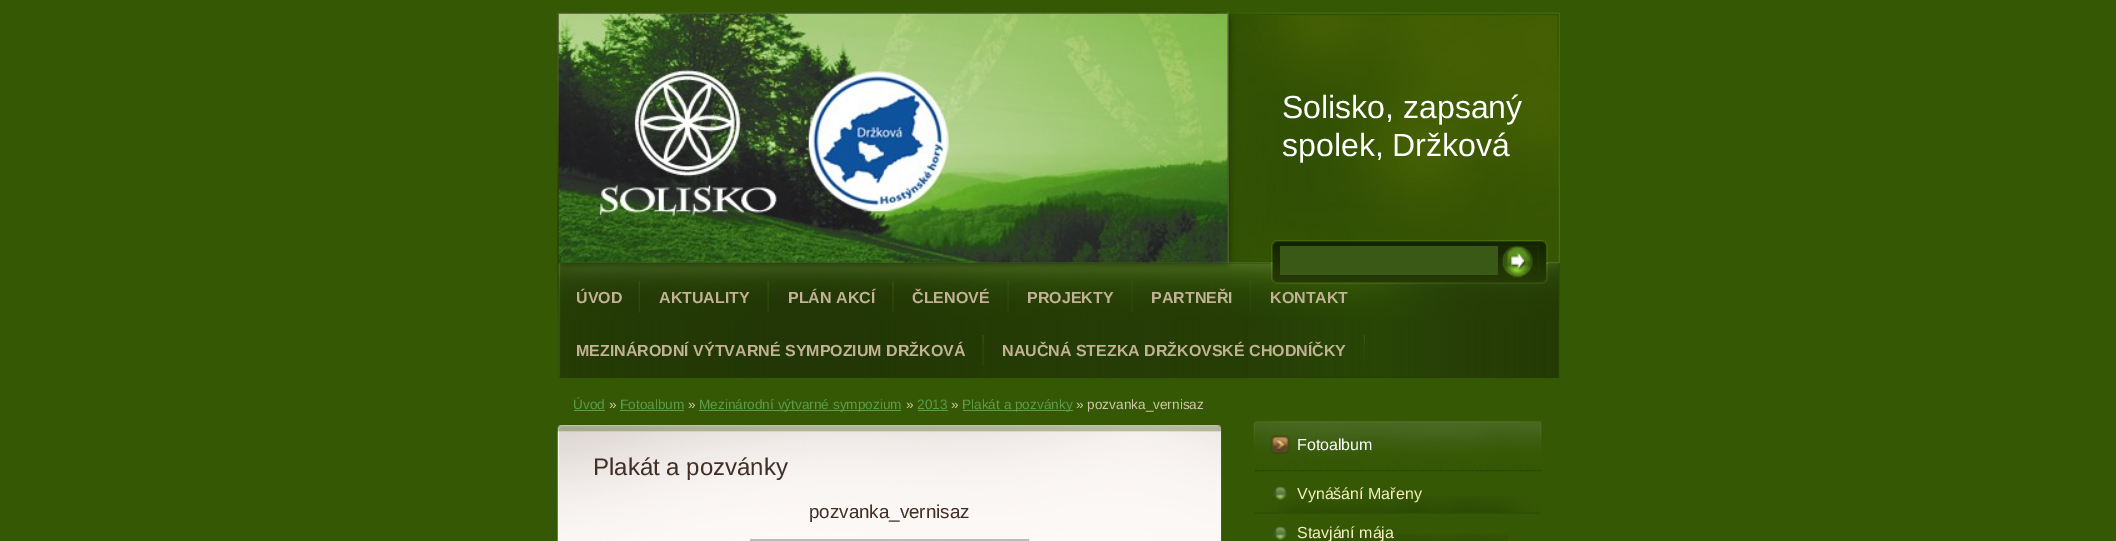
%!PS
<< /PageSize [2116 541] >> setpagedevice
/w/setlinewidth load def
/C { dup -16 bitshift 255 div exch dup -8 bitshift 255 and 255 div exch 255 and 255 div setrgbcolor } def
/F { [ exch dup neg 0 0 3 -1 roll 0 0 ] selectfont } def
/T { moveto show } def
/R { rectfill } def
/I { 5 dict begin { /h /w /y /x /name } { exch def } forall
  gsave x y translate w h scale
  w h 8 [w 0 0 h 0 0] name (r) file false 3 colorimage grestore end } def
0 541 translate 1 -1 scale
4 setmiterlimit
16#355805 C
0 0 2116 541 R
(1.rgb) 557 12 1003 252 I
(2.rgb) 558 13 670 250 I
/LiberationSans-Regular 32 F
16#FFFFFF C
(Solisko, zapsaný) 1282 118 T
(spolek, Držková) 1282 156 T
16#253C05 C
558 377 1002 1 R
(3.rgb) 558 263 1002 115 I
(4.rgb) 557 263 1003 58 I
(5.rgb) 638 281 2 32 I
/LiberationSans-Bold 16 F
16#C2B294 C
(ÚVOD) 576 303 T
(6.rgb) 767 281 2 32 I
(AKTUALITY) 659 303 T
(7.rgb) 892 281 2 32 I
(PLÁN AKCÍ) 788 303 T
(8.rgb) 1007 281 2 32 I
(ČLENOVÉ) 912 303 T
(9.rgb) 1131 281 2 32 I
(PROJEKTY) 1027 303 T
(10.rgb) 1250 281 1 32 I
(PARTNEŘI) 1151 303 T
(11.rgb) 1366 283 1 11 I
(KONTAKT) 1270 303 T
(12.rgb) 982 335 2 31 I
(MEZINÁRODNÍ VÝTVARNÉ SYMPOZIUM DRŽKOVÁ) 576 356 T
(13.rgb) 1363 335 2 31 I
(NAUČNÁ STEZKA DRŽKOVSKÉ CHODNÍČKY) 1002 356 T
/LiberationSans-Regular 13.6 F
16#5C9C4B C
(Úvod) 573 409 T
574 410 31 1 R
16#D0C8AA C
(») 609 409 T
16#5C9C4B C
(Fotoalbum) 620 409 T
620 410 64 1 R
16#D0C8AA C
(») 688 409 T
16#5C9C4B C
699 410 202 1 R
(Mezinárodní výtvarné sympozium) 699 409 T
16#D0C8AA C
(») 906 409 T
16#5C9C4B C
(2013) 917 409 T
918 410 30 1 R
16#D0C8AA C
(») 951 409 T
16#5C9C4B C
963 410 110 1 R
(Plakát a pozvánky) 962 409 T
16#D0C8AA C
(» pozvanka_vernisaz) 1076 409 T
(14.rgb) 557 425 665 116 I
/LiberationSans-Regular 24 F
16#412E24 C
(Plakát a pozvánky) 593 475 T
/LiberationSans-Regular 18.75 F
(pozvanka_vernisaz) 809 518 T
16#BBBBBB C
4 w
752 541 275 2 rectstroke
(15.rgb) 1271 240 277 44 I
(16.rgb) 1498 246 41 29 I
(17.rgb) 1498 246 41 29 I
16#3B5916 C
1280 246 218 29 R
(18.rgb) 1502 245 31 33 I
(19.rgb) 1253 421 289 51 I
/LiberationSans-Regular 16 F
16#FFFFFF C
(Fotoalbum) 1297 450 T
(20.rgb) 1254 496 287 18 I
(21.rgb) 1273 486 15 14 I
16#F6EFC1 C
(Vynášání Mařeny) 1297 499 T
(22.rgb) 1303 534 205 7 I
(23.rgb) 1273 526 15 14 I
(Stavjání mája) 1297 538 T
showpage
